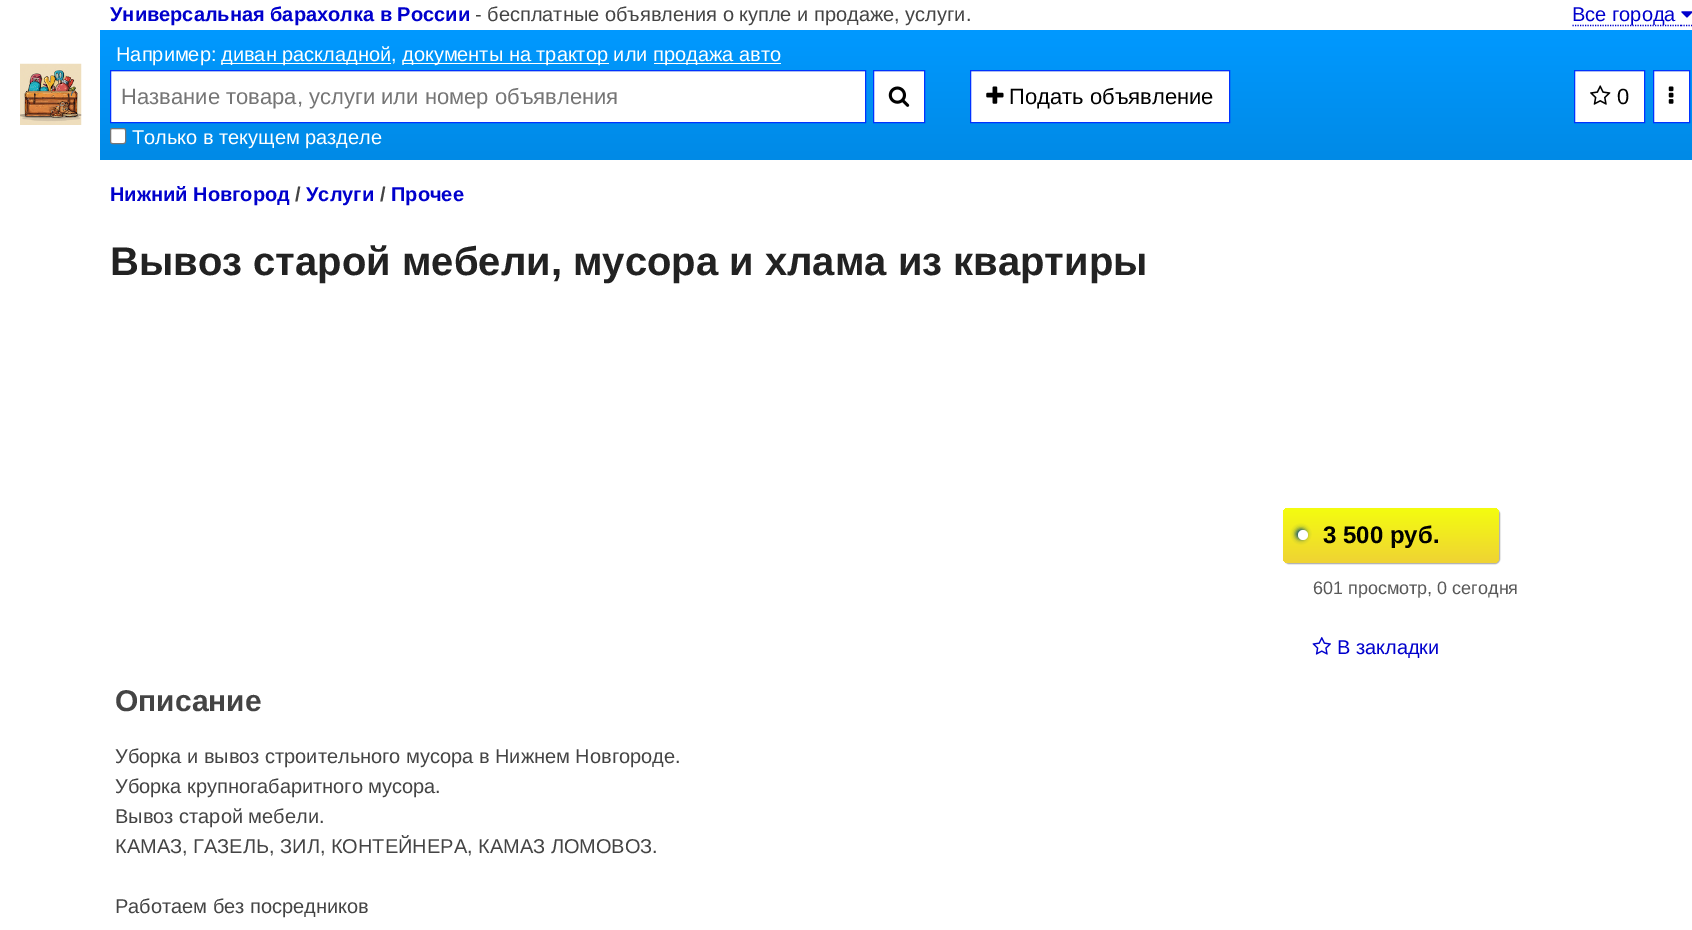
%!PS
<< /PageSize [1692 930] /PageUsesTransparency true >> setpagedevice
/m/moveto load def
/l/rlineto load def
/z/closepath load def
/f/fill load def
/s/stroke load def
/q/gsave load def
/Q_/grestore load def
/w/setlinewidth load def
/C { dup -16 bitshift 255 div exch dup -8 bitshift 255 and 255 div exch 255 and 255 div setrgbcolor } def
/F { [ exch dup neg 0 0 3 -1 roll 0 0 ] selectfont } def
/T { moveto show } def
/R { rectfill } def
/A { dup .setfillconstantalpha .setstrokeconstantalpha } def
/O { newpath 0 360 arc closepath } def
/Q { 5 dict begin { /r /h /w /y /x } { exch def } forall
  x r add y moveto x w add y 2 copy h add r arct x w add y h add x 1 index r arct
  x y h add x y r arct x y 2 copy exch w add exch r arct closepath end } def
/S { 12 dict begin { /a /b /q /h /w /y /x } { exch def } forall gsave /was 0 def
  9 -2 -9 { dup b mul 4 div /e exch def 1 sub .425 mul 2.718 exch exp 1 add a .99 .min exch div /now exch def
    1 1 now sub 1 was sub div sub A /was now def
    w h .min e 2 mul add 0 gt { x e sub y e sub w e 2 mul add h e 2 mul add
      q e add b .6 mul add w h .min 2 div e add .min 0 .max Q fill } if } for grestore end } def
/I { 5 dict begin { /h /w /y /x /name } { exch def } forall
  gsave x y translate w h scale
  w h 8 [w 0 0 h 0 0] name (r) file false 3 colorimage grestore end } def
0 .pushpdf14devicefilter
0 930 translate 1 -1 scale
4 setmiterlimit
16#FFFFFF C
0 0 1692 930 R
/LiberationSans-Bold 20 F
16#0000CC C
(Универсальная барахолка в России) 110 21 T
/LiberationSans-Regular 20 F
16#444444 C
(- бесплатные объявления о купле и продаже, услуги.) 475 21 T
16#0000CC C
1.2 w
[1.25 1.25] 0 setdash
1572.5 25.5 m 108.5 0 l s
1681 25.5 m 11.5 0 l s
(Все города) 1572 21 T
(1.rgb) 1681 11 11 7 I
q 100 30 m 1592 0 l 0 130 l -1592 0 l z clip newpath
<< /ShadingType 2 /ColorSpace /DeviceRGB /Coords [0 30 0 160] /Extend [true true] /Function << /FunctionType 2 /Domain [0 1] /C0 [0 .6 1] /C1 [0 .541 .902] /N 1 >> >> shfill Q_
(2.rgb) 20 63 62 62 I
16#FFFFFF C
(Например:) 116 61 T
221 63 170 1 R
(диван раскладной,) 221 61 T
403 63 206 1 R
(документы на трактор или) 402 61 T
654 63 127 1 R
(продажа авто) 653 61 T
111 72 754 50 R
16#ECECEC C
111 71 754 1 R
16#0033FF C
1 w
[] 0 setdash
110.5 70.5 755 52 rectstroke
/LiberationSans-Regular 22 F
16#757575 C
(Название товара, услуги или номер объявления) 121 104 T
16#FFFFFF C
874 72 50 50 R
16#ECECEC C
874 71 50 1 R
16#0033FF C
873.5 70.5 51 52 rectstroke
(3.rgb) 888 86 22 21 I
16#FFFFFF C
110.5 128.5 15 15 2 Q q f Q_
16#767676 C
s
/LiberationSans-Regular 20 F
16#FFFFFF C
(Только в текущем разделе) 132 144 T
971 72 258 50 R
16#ECECEC C
971 71 258 1 R
16#0033FF C
970.5 70.5 259 52 rectstroke
(4.rgb) 986 86 18 18 I
/LiberationSans-Regular 22 F
16#000000 C
(Подать объявление) 1009 104 T
16#FFFFFF C
1575 72 69 50 R
16#ECECEC C
1575 71 69 1 R
16#0033FF C
1574.5 70.5 70 52 rectstroke
(5.rgb) 1590 85 21 20 I
16#000000 C
(0) 1617 104 T
16#FFFFFF C
1654 72 35 50 R
16#ECECEC C
1654 71 35 1 R
16#0033FF C
1653.5 70.5 36 52 rectstroke
(6.rgb) 1668 86 6 18 I
/LiberationSans-Bold 20 F
16#0000CC C
(Нижний Новгород) 110 201 T
16#444444 C
(/) 295 201 T
16#0000CC C
(Услуги) 306 201 T
16#444444 C
(/) 380 201 T
16#0000CC C
(Прочее) 391 201 T
/LiberationSans-Bold 40 F
16#222222 C
(Вывоз старой мебели, мусора и хлама из квартиры) 110 275 T
16#AAAAAA C
1284 509 216 55 5 .5 1 S
q 1283 508 216 55 5 Q clip newpath
<< /ShadingType 2 /ColorSpace /DeviceRGB /Coords [1283 508 1283 563] /Extend [true true] /Function << /FunctionType 2 /Domain [0 1] /C0 [.957 .992 .059] /C1 [.937 .827 .204] /N 1 >> >> shfill Q_
16#004977 C
1296 529 10 10 5 2.5 1 S
16#FFFFFF C
1303 535 5 O f
/LiberationSans-Bold 24 F
16#000000 C
(3 500 руб.) 1323 543 T
/LiberationSans-Regular 18 F
16#595959 C
(601 просмотр, 0 сегодня) 1313 594 T
(7.rgb) 1312 637 19 18 I
/LiberationSans-Regular 20 F
16#0000CC C
(В закладки) 1337 654 T
/LiberationSans-Bold 30 F
16#444444 C
(Описание) 115 711 T
/LiberationSans-Regular 20 F
(Уборка и вывоз строительного мусора в Нижнем Новгороде.) 115 763 T
(Уборка крупногабаритного мусора.) 115 793 T
(Вывоз старой мебели.) 115 823 T
(КАМАЗ, ГАЗЕЛЬ, ЗИЛ, КОНТЕЙНЕРА, КАМАЗ ЛОМОВОЗ.) 115 853 T
(Работаем без посредников) 115 913 T
.poppdf14devicefilter showpage
